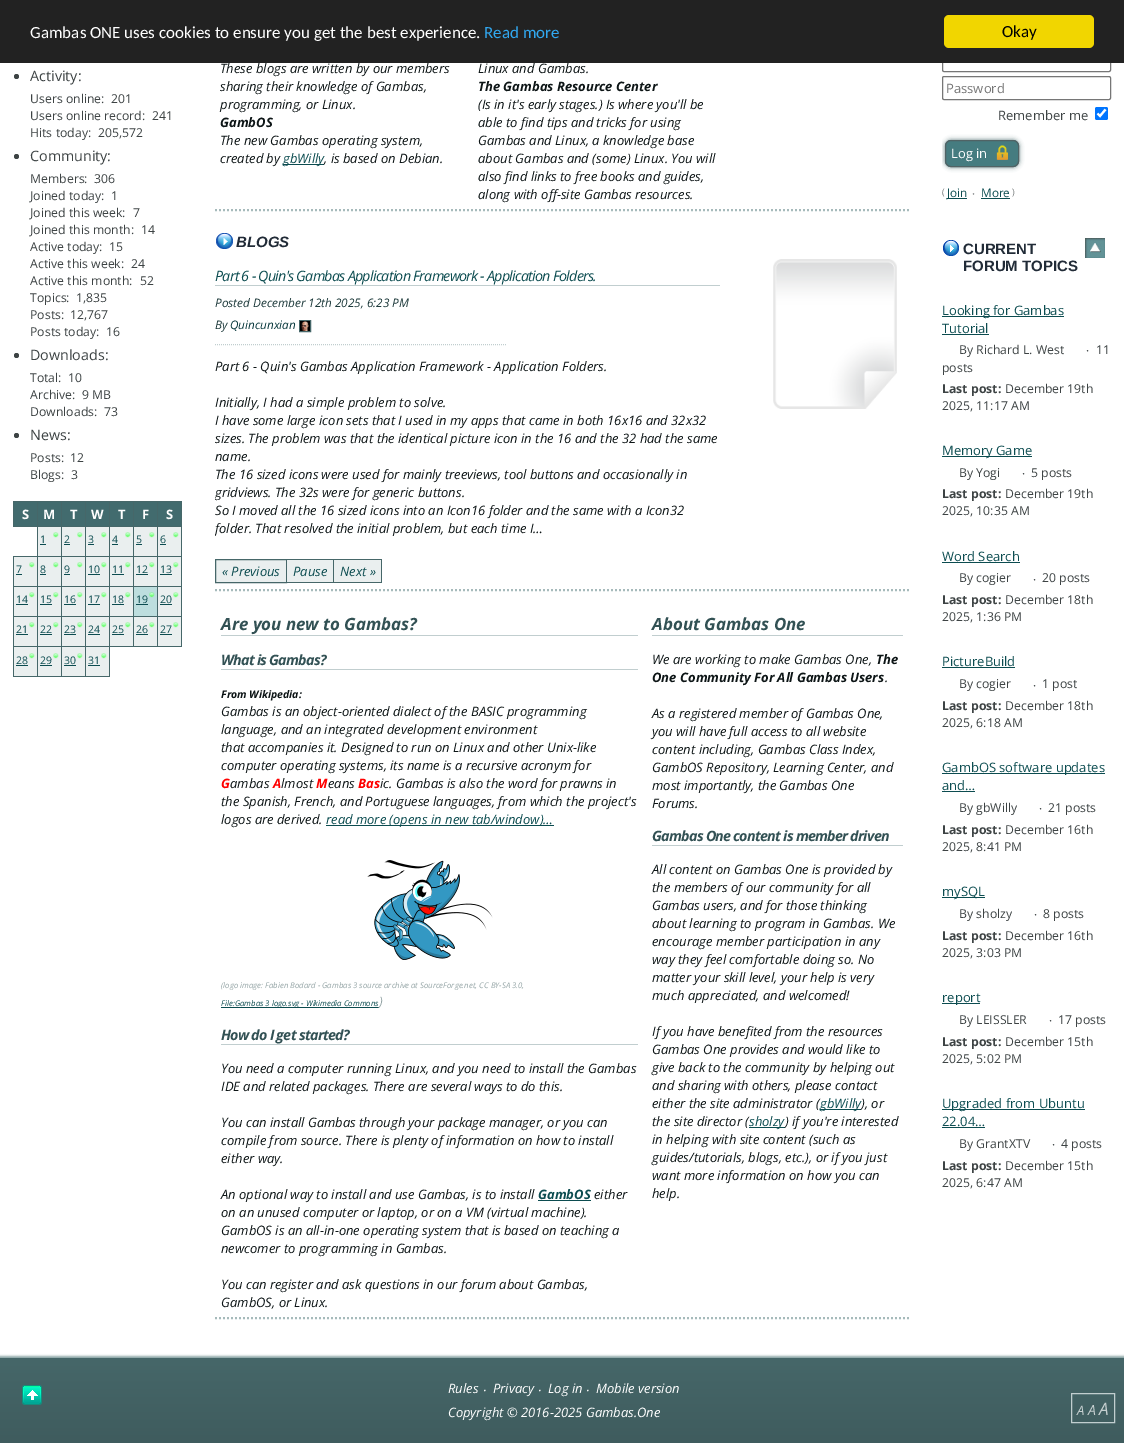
%!PS
<< /PageSize [1124 1443] /PageUsesTransparency true >> setpagedevice
/m/moveto load def
/l/rlineto load def
/z/closepath load def
/f/fill load def
/s/stroke load def
/q/gsave load def
/Q_/grestore load def
/w/setlinewidth load def
/C { dup -16 bitshift 255 div exch dup -8 bitshift 255 and 255 div exch 255 and 255 div setrgbcolor } def
/F { [ exch dup neg 0 0 3 -1 roll 0 0 ] selectfont } def
/T { moveto show } def
/R { rectfill } def
/A { dup .setfillconstantalpha .setstrokeconstantalpha } def
/O { newpath 0 360 arc closepath } def
/Q { 5 dict begin { /r /h /w /y /x } { exch def } forall
  x r add y moveto x w add y 2 copy h add r arct x w add y h add x 1 index r arct
  x y h add x y r arct x y 2 copy exch w add exch r arct closepath end } def
/S { 12 dict begin { /a /b /q /h /w /y /x } { exch def } forall gsave /was 0 def
  9 -2 -9 { dup b mul 4 div /e exch def 1 sub .425 mul 2.718 exch exp 1 add a .99 .min exch div /now exch def
    1 1 now sub 1 was sub div sub A /was now def
    w h .min e 2 mul add 0 gt { x e sub y e sub w e 2 mul add h e 2 mul add
      q e add b .6 mul add w h .min 2 div e add .min 0 .max Q fill } if } for grestore end } def
/I { 5 dict begin { /h /w /y /x /name } { exch def } forall
  gsave x y translate w h scale
  w h 8 [w 0 0 h 0 0] name (r) file false 3 colorimage grestore end } def
0 .pushpdf14devicefilter
0 1443 translate 1 -1 scale
4 setmiterlimit
16#FFFFFF C
0 0 1124 1443 R
16#767676 C
942.5 48.5 168 23 1.5 Q s
16#222222 C
0 0 1124 63 R
/Carlito-Regular 17 F
16#FFFFFF C
(Gambas ONE uses cookies to ensure you get the best experience.) 30 38 T
16#31A8F0 C
(Read more) 484 38 T
16#F1D600 C
944 15 150 33 5 Q f
16#000000 C
(Okay) 1002 37 T
16#3D4344 C
16.5 76.5 2.5 O f
/OpenSans-Regular 14.3 F
(Activity:) 30 81 T
/OpenSans-Regular 12.25 F
(Users online:) 30 103 T
(201) 111 103 T
(Users online record:) 30 120 T
(241) 152 120 T
(Hits today:) 30 137 T
(205,572) 98 137 T
16.5 156.5 2.5 O f
/OpenSans-Regular 14.3 F
(Community:) 30 161 T
/OpenSans-Regular 12.25 F
(Members:) 30 183 T
(306) 94 183 T
(Joined today:) 30 200 T
(1) 111 200 T
(Joined this week:) 30 217 T
(7) 133 217 T
(Joined this month:) 30 234 T
(14) 141 234 T
(Active today:) 30 251 T
(15) 109 251 T
(Active this week:) 30 268 T
(24) 131 268 T
(Active this month:) 30 285 T
(52) 140 285 T
(Topics:) 30 302 T
(1,835) 76 302 T
(Posts:) 30 319 T
(12,767) 70 319 T
(Posts today:) 30 336 T
(16) 106 336 T
16.5 355.5 2.5 O f
/OpenSans-Regular 14.3 F
(Downloads:) 30 360 T
/OpenSans-Regular 12.25 F
(Total:) 30 382 T
(10) 68 382 T
(Archive:) 30 399 T
(9 MB) 82 399 T
(Downloads:) 30 416 T
(73) 104 416 T
16.5 435.5 2.5 O f
/OpenSans-Regular 14.3 F
(News:) 30 440 T
/OpenSans-Regular 12.25 F
(Posts:) 30 462 T
(12) 70 462 T
(Blogs:) 30 479 T
(3) 71 479 T
16#426B6E C
14 502 23 24 R
16#466769 C
157 501 25 1 R
157 526 25 1 R
157 556 25 1 R
157 586 25 1 R
157 616 25 1 R
181 616 1 31 R
157 646 25 1 R
157 616 1 31 R
133 616 25 1 R
157 586 1 31 R
133 586 25 1 R
157 556 1 31 R
133 556 25 1 R
157 526 1 31 R
133 526 25 1 R
157 501 1 26 R
133 501 25 1 R
133 646 25 1 R
133 616 1 31 R
109 616 25 1 R
133 586 1 31 R
109 586 25 1 R
133 556 1 31 R
109 556 25 1 R
133 526 1 31 R
109 526 25 1 R
133 501 1 26 R
109 501 25 1 R
85 646 25 1 R
109 646 1 31 R
109 646 25 1 R
109 616 1 31 R
85 616 25 1 R
109 586 1 31 R
85 586 25 1 R
109 556 1 31 R
85 556 25 1 R
109 526 1 31 R
85 526 25 1 R
109 501 1 26 R
85 501 25 1 R
85 676 25 1 R
85 646 1 31 R
61 646 25 1 R
85 616 1 31 R
61 616 25 1 R
85 586 1 31 R
61 586 25 1 R
85 556 1 31 R
61 556 25 1 R
85 526 1 31 R
61 526 25 1 R
85 501 1 26 R
61 501 25 1 R
61 676 25 1 R
61 646 1 31 R
37 646 25 1 R
61 616 1 31 R
37 616 25 1 R
61 586 1 31 R
37 586 25 1 R
61 556 1 31 R
37 556 25 1 R
61 526 1 31 R
37 526 25 1 R
61 501 1 26 R
37 501 25 1 R
37 676 25 1 R
37 646 1 31 R
13 646 25 1 R
37 616 1 31 R
13 616 25 1 R
37 586 1 31 R
13 586 25 1 R
37 556 1 31 R
13 556 25 1 R
37 526 1 31 R
37 501 1 26 R
13 501 25 1 R
13 526 25 1 R
13 501 1 26 R
/OpenSans-Bold 13 F
16#FFFFFF C
(S) 22 519 T
16#426B6E C
38 502 23 24 R
16#FFFFFF C
(M) 43 519 T
16#426B6E C
62 502 23 24 R
16#FFFFFF C
(T) 70 519 T
16#426B6E C
86 502 23 24 R
16#FFFFFF C
(W) 91 519 T
16#426B6E C
110 502 23 24 R
16#FFFFFF C
(T) 118 519 T
16#426B6E C
134 502 23 24 R
16#FFFFFF C
(F) 142 519 T
16#426B6E C
158 502 23 24 R
16#466769 C
181 586 1 31 R
181 556 1 31 R
181 526 1 31 R
181 501 1 26 R
16#FFFFFF C
(S) 166 519 T
16#EAEFEF C
38 527 23 29 R
/OpenSans-Regular 10.5 F
16#0C4C50 C
(1) 40 543 T
40 544 6 1 R
(1.rgb) 53 532 6 6 I
16#EAEFEF C
62 527 23 29 R
16#0C4C50 C
(2) 64 543 T
64 544 6 1 R
(1.rgb) 77 532 6 6 I
16#EAEFEF C
86 527 23 29 R
16#0C4C50 C
(3) 88 543 T
88 544 6 1 R
(1.rgb) 101 532 6 6 I
16#EAEFEF C
110 527 23 29 R
16#0C4C50 C
(4) 112 543 T
112 544 6 1 R
(1.rgb) 125 532 6 6 I
16#EAEFEF C
134 527 23 29 R
16#0C4C50 C
(5) 136 543 T
136 544 6 1 R
(1.rgb) 149 532 6 6 I
16#EAEFEF C
158 527 23 29 R
16#0C4C50 C
(6) 160 543 T
160 544 6 1 R
(1.rgb) 173 532 6 6 I
16#EAEFEF C
14 557 23 29 R
16#466769 C
13 676 25 1 R
13 646 1 31 R
13 616 1 31 R
13 586 1 31 R
13 556 1 31 R
16#0C4C50 C
(7) 16 573 T
16 574 6 1 R
(1.rgb) 29 562 6 6 I
16#EAEFEF C
38 557 23 29 R
16#0C4C50 C
(8) 40 573 T
40 574 6 1 R
(1.rgb) 53 562 6 6 I
16#EAEFEF C
62 557 23 29 R
16#0C4C50 C
(9) 64 573 T
64 574 6 1 R
(1.rgb) 77 562 6 6 I
16#EAEFEF C
86 557 23 29 R
16#0C4C50 C
(10) 88 573 T
88 574 12 1 R
(1.rgb) 101 562 6 6 I
16#EAEFEF C
110 557 23 29 R
16#0C4C50 C
(11) 112 573 T
112 574 12 1 R
(1.rgb) 125 562 6 6 I
16#EAEFEF C
134 557 23 29 R
16#0C4C50 C
(12) 136 573 T
136 574 12 1 R
(1.rgb) 149 562 6 6 I
16#EAEFEF C
158 557 23 29 R
16#0C4C50 C
(13) 160 573 T
160 574 12 1 R
(1.rgb) 173 562 6 6 I
16#EAEFEF C
14 587 23 29 R
16#0C4C50 C
(14) 16 603 T
16 604 12 1 R
(1.rgb) 29 592 6 6 I
16#EAEFEF C
38 587 23 29 R
16#0C4C50 C
(15) 40 603 T
40 604 12 1 R
(1.rgb) 53 592 6 6 I
16#EAEFEF C
62 587 23 29 R
16#0C4C50 C
(16) 64 603 T
64 604 12 1 R
(1.rgb) 77 592 6 6 I
16#EAEFEF C
86 587 23 29 R
16#0C4C50 C
(17) 88 603 T
88 604 12 1 R
(1.rgb) 101 592 6 6 I
16#EAEFEF C
110 587 23 29 R
16#0C4C50 C
(18) 112 603 T
112 604 12 1 R
(1.rgb) 125 592 6 6 I
16#BDDEDE C
134 587 23 29 R
16#0C4C50 C
(19) 136 603 T
136 604 12 1 R
(2.rgb) 149 592 6 6 I
16#EAEFEF C
158 587 23 29 R
16#0C4C50 C
(20) 160 603 T
160 604 12 1 R
(1.rgb) 173 592 6 6 I
16#EAEFEF C
14 617 23 29 R
16#0C4C50 C
(21) 16 633 T
16 634 12 1 R
(1.rgb) 29 622 6 6 I
16#EAEFEF C
38 617 23 29 R
16#0C4C50 C
(22) 40 633 T
40 634 12 1 R
(1.rgb) 53 622 6 6 I
16#EAEFEF C
62 617 23 29 R
16#0C4C50 C
(23) 64 633 T
64 634 12 1 R
(1.rgb) 77 622 6 6 I
16#EAEFEF C
86 617 23 29 R
16#0C4C50 C
(24) 88 633 T
88 634 12 1 R
(1.rgb) 101 622 6 6 I
16#EAEFEF C
110 617 23 29 R
16#0C4C50 C
(25) 112 633 T
112 634 12 1 R
(1.rgb) 125 622 6 6 I
16#EAEFEF C
134 617 23 29 R
16#0C4C50 C
(26) 136 633 T
136 634 12 1 R
(1.rgb) 149 622 6 6 I
16#EAEFEF C
158 617 23 29 R
16#0C4C50 C
(27) 160 633 T
160 634 12 1 R
(1.rgb) 173 622 6 6 I
16#EAEFEF C
14 647 23 29 R
16#0C4C50 C
(28) 16 664 T
16 665 12 1 R
(1.rgb) 29 653 6 6 I
16#EAEFEF C
38 647 23 29 R
16#0C4C50 C
(29) 40 664 T
40 665 12 1 R
(1.rgb) 53 653 6 6 I
16#EAEFEF C
62 647 23 29 R
16#0C4C50 C
(30) 64 664 T
64 665 12 1 R
(1.rgb) 77 653 6 6 I
16#EAEFEF C
86 647 23 29 R
16#0C4C50 C
(31) 88 664 T
88 665 12 1 R
(1.rgb) 101 653 6 6 I
/OpenSans-Italic 13 F
16#0D1516 C
(These blogs are written by our members) 220 73 T
(sharing their knowledge of Gambas,) 220 91 T
(programming, or Linux.) 220 109 T
/OpenSans-BoldItalic 13 F
(GambOS) 220 127 T
/OpenSans-Italic 13 F
(The new Gambas operating system,) 220 145 T
(created by) 220 163 T
16#0C4C50 C
283 164 41 1 R
(gbWilly) 283 163 T
16#0D1516 C
(, is based on Debian.) 324 163 T
(Linux and Gambas.) 478 73 T
/OpenSans-BoldItalic 13 F
(The Gambas Resource Center) 478 91 T
/OpenSans-Italic 13 F
(\(Is in it's early stages.\) Is where you'll be) 478 109 T
(able to find tips and tricks for using) 478 127 T
(Gambas and Linux, a knowledge base) 478 145 T
(about Gambas and \(some\) Linux. You will) 478 163 T
(also find links to free books and guides,) 478 181 T
(along with off-site Gambas resources.) 478 199 T
16#A6BABB C
2 w
[2 2] 0 setdash
215 210 m 695 0 l s
(3.rgb) 216 233 17 16 I
/LiberationSans-BoldItalic 15 F
16#212B37 C
(BLOGS) 236 247 T
16#C1CECF C
215 285 505 1 R
/OpenSans-Italic 14.3 F
16#0C4C50 C
215 281 m -.75 0 (Part 6 - Quin's Gambas Application Framework - Application Folders.) ashow
16#C1CECF C
1 w
[1 1] 0 setdash
215 344.5 m 292 0 l s
/OpenSans-Italic 11.75 F
16#1C393A C
(Posted December 12th 2025, 6:23 PM) 215 307 T
(By) 215 329 T
16#09393D C
(Quincunxian) 230 329 T
16#466769 C
[] 0 setdash
299.5 320.5 11 11 rectstroke
(4.rgb) 300 321 10 10 I
/OpenSans-Italic 13 F
16#0D1516 C
(Part 6 - Quin's Gambas Application Framework - Application Folders.) 215 371 T
(Initially, I had a simple problem to solve.) 215 407 T
(I have some large icon sets that I used in my apps that came in both 16x16 and 32x32) 215 425 T
(sizes. The problem was that the identical picture icon in the 16 and the 32 had the same) 215 443 T
(name.) 215 461 T
(The 16 sized icons were used for mainly treeviews, tool buttons and occasionally in) 215 479 T
q
215 224 695 359 rectclip
(gridviews. The 32s were for generic buttons.) 215 497 T
Q_
(So I moved all the 16 sized icons into an Icon16 folder and the same with a Icon32) 215 515 T
q
215 224 695 359 rectclip
(folder. That resolved the initial problem, but each time I…) 215 533 T
Q_
16#EAEFEF C
215.5 559.5 m 71 0 l 0 23 l -71 0 l z q f Q_
16#466769 C
s
16#0C4C50 C
(« Previous) 222 576 T
16#EAEFEF C
287 560 46 22 R
16#466769 C
287 559 95 1 R
333 559 1 24 R
287 582 47 1 R
16#0C4C50 C
(Pause) 293 576 T
16#EAEFEF C
334 560 47 22 R
16#466769 C
381 559 1 24 R
334 582 48 1 R
16#0C4C50 C
(Next ») 340 576 T
(5.rgb) 773 259 124 150 I
16#A6BABB C
2 w
[2 2] 0 setdash
215 590 m 695 0 l s
16#C1CECF C
221 635 417 1 R
/OpenSans-BoldItalic 16.9 F
16#325154 C
(Are you new to Gambas?) 221 630 T
16#C1CECF C
221 669 417 1 R
/OpenSans-BoldItalic 14.3 F
16#325154 C
221 665 m -.75 0 (What is Gambas?) ashow
/OpenSans-BoldItalic 10.5 F
16#0D1516 C
(From Wikipedia:) 221 698 T
/OpenSans-Italic 13 F
(Gambas is an object-oriented dialect of the BASIC programming) 221 716 T
(language, and an integrated development environment) 221 734 T
(that accompanies it. Designed to run on Linux and other Unix-like) 221 752 T
(computer operating systems, its name is a recursive acronym for) 221 770 T
/OpenSans-BoldItalic 13 F
16#FF0000 C
(G) 221 788 T
/OpenSans-Italic 13 F
16#0D1516 C
(ambas) 230 788 T
/OpenSans-BoldItalic 13 F
16#FF0000 C
(A) 273 788 T
/OpenSans-Italic 13 F
16#0D1516 C
(lmost) 281 788 T
/OpenSans-BoldItalic 13 F
16#FF0000 C
(M) 316 788 T
/OpenSans-Italic 13 F
16#0D1516 C
(eans) 328 788 T
/OpenSans-BoldItalic 13 F
16#FF0000 C
(Bas) 358 788 T
/OpenSans-Italic 13 F
16#0D1516 C
(ic. Gambas is also the word for prawns in) 380 788 T
(the Spanish, French, and Portuguese languages, from which the project's) 221 806 T
(logos are derived.) 221 824 T
16#0C4C50 C
326 825 228 1 R
(read more \(opens in new tab/window\)…) 326 824 T
(6.rgb) 367 860 126 100 I
/OpenSans-Italic 7.8 F
16#95A5A6 C
(\(logo image: Fabien Bodard - Gambas 3 source archive at SourceForge.net, CC BY-SA 3.0,) 221 988 T
16#0C4C50 C
221 1007 158 1 R
(File:Gambas 3 logo.svg - Wikimedia Commons) 221 1006 T
/OpenSans-Italic 13 F
16#95A5A6 C
(\)) 379 1006 T
16#C1CECF C
221 1044 417 1 R
/OpenSans-BoldItalic 14.3 F
16#325154 C
221 1040 m -.75 0 (How do I get started?) ashow
/OpenSans-Italic 13 F
16#0D1516 C
(You need a computer running Linux, and you need to install the Gambas) 221 1073 T
(IDE and related packages. There are several ways to do this.) 221 1091 T
(You can install Gambas through your package manager, or you can) 221 1127 T
(compile from source. There is plenty of information on how to install) 221 1145 T
(either way.) 221 1163 T
(An optional way to install and use Gambas, is to install) 221 1199 T
/OpenSans-BoldItalic 13 F
16#0C4C50 C
(GambOS) 538 1199 T
538 1200 53 1 R
/OpenSans-Italic 13 F
16#0D1516 C
(either) 594 1199 T
(on an unused computer or laptop, or on a VM \(virtual machine\).) 221 1217 T
(GambOS is an all-in-one operating system that is based on teaching a) 221 1235 T
(newcomer to programming in Gambas.) 221 1253 T
(You can register and ask questions in our forum about Gambas,) 221 1289 T
(GambOS, or Linux.) 221 1307 T
16#C1CECF C
652 635 251 1 R
/OpenSans-BoldItalic 16.9 F
16#325154 C
(About Gambas One) 652 630 T
/OpenSans-Italic 13 F
16#0D1516 C
(We are working to make Gambas One,) 652 664 T
/OpenSans-BoldItalic 13 F
(The) 876 664 T
(One Community For All Gambas Users) 652 682 T
/OpenSans-Italic 13 F
(.) 885 682 T
(As a registered member of Gambas One,) 652 718 T
(you will have full access to all website) 652 736 T
(content including, Gambas Class Index,) 652 754 T
(GambOS Repository, Learning Center, and) 652 772 T
(most importantly, the Gambas One) 652 790 T
(Forums.) 652 808 T
16#C1CECF C
652 845 251 1 R
/OpenSans-BoldItalic 14.3 F
16#325154 C
652 841 m -.75 0 (Gambas One content is member driven) ashow
/OpenSans-Italic 13 F
16#0D1516 C
(All content on Gambas One is provided by) 652 874 T
(the members of our community for all) 652 892 T
(Gambas users, and for those thinking) 652 910 T
(about learning to program in Gambas. We) 652 928 T
(encourage member participation in any) 652 946 T
(way they feel comfortable doing so. No) 652 964 T
(matter your skill level, your help is very) 652 982 T
(much appreciated, and welcomed!) 652 1000 T
(If you have benefited from the resources) 652 1036 T
(Gambas One provides and would like to) 652 1054 T
(give back to the community by helping out) 652 1072 T
(and sharing with others, please contact) 652 1090 T
(either the site administrator \() 652 1108 T
16#0C4C50 C
820 1109 41 1 R
(gbWilly) 820 1108 T
16#0D1516 C
(\), or) 861 1108 T
(the site director \() 652 1126 T
16#0C4C50 C
749 1127 36 1 R
(sholzy) 749 1126 T
16#0D1516 C
(\) if you're interested) 785 1126 T
(in helping with site content \(such as) 652 1144 T
(guides/tutorials, blogs, etc.\), or if you just) 652 1162 T
(want more information on how you can) 652 1180 T
(help.) 652 1198 T
16#A6BABB C
215 1318 m 695 0 l s
16#767676 C
1 w
[] 0 setdash
942.5 76.5 168 23 1.5 Q s
/OpenSans-Regular 13 F
16#757575 C
(Password) 946 93 T
16#3D4344 C
(Remember me) 998 120 T
16#0075FF C
1095 107 13 13 2 Q f
16#FFFFFF C
2.1 w
1097.5 113.5 m 2.5 2.5 l 5.5 -6.5 l s
q
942 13 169 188 rectclip
16#627E80 C
945 140 74 27 6 2.5 1 S
Q_
16#457C80 C
945 140 74 27 6 Q f
(7.rgb) 996 145 12 15 I
16#506365 C
1 w
945.5 140.5 73 26 5.5 Q s
16#FFFFFF C
(Log in) 951 158 T
/OpenSans-Regular 9 F
16#777B7C C
(\() 942 195 T
16#0C4C50 C
947 198 20 1 R
/OpenSans-Regular 11.75 F
(Join) 947 197 T
16#777B7C C
(·) 972 198 T
16#0C4C50 C
(More) 981 197 T
981 198 29 1 R
/OpenSans-Regular 9 F
16#777B7C C
(\)) 1012 195 T
(8.rgb) 943 240 16 16 I
/LiberationSans-Bold 15 F
16#212B37 C
(CURRENT) 963 254 T
(9.rgb) 1085 238 20 20 I
(FORUM TOPICS) 963 271 T
16#0C4C50 C
942 316 122 1 R
/OpenSans-Regular 13 F
(Looking for Gambas) 942 315 T
(Tutorial) 942 333 T
942 334 47 1 R
/OpenSans-Regular 12.25 F
16#3D4344 C
(By Richard L. West) 959 354 T
(·) 1086 355 T
(11) 1096 354 T
(posts) 942 372 T
/OpenSans-Bold 12.25 F
(Last post:) 942 393 T
/OpenSans-Regular 12.25 F
(December 19th) 1005 393 T
(2025, 11:17 AM) 942 410 T
16#0C4C50 C
942 456 90 1 R
/OpenSans-Regular 13 F
(Memory Game) 942 455 T
/OpenSans-Regular 12.25 F
16#3D4344 C
(By Yogi) 959 477 T
(·) 1022 478 T
(5 posts) 1031 477 T
/OpenSans-Bold 12.25 F
(Last post:) 942 498 T
/OpenSans-Regular 12.25 F
(December 19th) 1005 498 T
(2025, 10:35 AM) 942 515 T
/OpenSans-Regular 13 F
16#0C4C50 C
(Word Search) 942 561 T
942 562 78 1 R
/OpenSans-Regular 12.25 F
16#3D4344 C
(By cogier) 959 582 T
(·) 1033 584 T
(20 posts) 1042 582 T
/OpenSans-Bold 12.25 F
(Last post:) 942 604 T
/OpenSans-Regular 12.25 F
(December 18th) 1005 604 T
(2025, 1:36 PM) 942 621 T
/OpenSans-Regular 13 F
16#0C4C50 C
(PictureBuild) 942 666 T
942 667 73 1 R
/OpenSans-Regular 12.25 F
16#3D4344 C
(By cogier) 959 688 T
(·) 1033 690 T
(1 post) 1042 688 T
/OpenSans-Bold 12.25 F
(Last post:) 942 710 T
/OpenSans-Regular 12.25 F
(December 18th) 1005 710 T
(2025, 6:18 AM) 942 727 T
16#0C4C50 C
942 773 163 1 R
/OpenSans-Regular 13 F
(GambOS software updates) 942 772 T
(and…) 942 790 T
942 791 33 1 R
/OpenSans-Regular 12.25 F
16#3D4344 C
(By gbWilly) 959 812 T
(·) 1039 813 T
(21 posts) 1048 812 T
/OpenSans-Bold 12.25 F
(Last post:) 942 834 T
/OpenSans-Regular 12.25 F
(December 16th) 1005 834 T
(2025, 8:41 PM) 942 851 T
16#0C4C50 C
942 897 43 1 R
/OpenSans-Regular 13 F
(mySQL) 942 896 T
/OpenSans-Regular 12.25 F
16#3D4344 C
(By sholzy) 959 918 T
(·) 1034 919 T
(8 posts) 1043 918 T
/OpenSans-Bold 12.25 F
(Last post:) 942 940 T
/OpenSans-Regular 12.25 F
(December 16th) 1005 940 T
(2025, 3:03 PM) 942 957 T
16#0C4C50 C
942 1003 38 1 R
/OpenSans-Regular 13 F
(report) 942 1002 T
/OpenSans-Regular 12.25 F
16#3D4344 C
(By LEISSLER) 959 1024 T
(·) 1049 1025 T
(17 posts) 1058 1024 T
/OpenSans-Bold 12.25 F
(Last post:) 942 1046 T
/OpenSans-Regular 12.25 F
(December 15th) 1005 1046 T
(2025, 5:02 PM) 942 1063 T
16#0C4C50 C
942 1109 143 1 R
/OpenSans-Regular 13 F
(Upgraded from Ubuntu) 942 1108 T
(22.04…) 942 1126 T
942 1127 43 1 R
/OpenSans-Regular 12.25 F
16#3D4344 C
(By GrantXTV) 959 1148 T
(·) 1052 1149 T
(4 posts) 1061 1148 T
/OpenSans-Bold 12.25 F
(Last post:) 942 1170 T
/OpenSans-Regular 12.25 F
(December 15th) 1005 1170 T
(2025, 6:47 AM) 942 1187 T
16#8BA4A6 C
-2 1356 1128 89 0 1 1 S
q 0 1358 m 1124 0 l 0 85 l -1124 0 l z clip newpath
<< /ShadingType 2 /ColorSpace /DeviceRGB /Coords [562 1358 562 1443] /Extend [true true] /Function << /FunctionType 2 /Domain [0 1] /C0 [.275 .404 .412] /C1 [.247 .361 .369] /N 1 >> >> shfill Q_
(10.rgb) 22 1385 20 20 I
/OpenSans-Italic 13 F
16#FFFFFF C
(Rules) 448 1393 T
(·) 483 1395 T
(Privacy) 493 1393 T
(·) 538 1395 T
(Log in) 548 1393 T
(·) 586 1395 T
(Mobile version) 596 1393 T
(Copyright © 2016-2025 Gambas.One) 448 1417 T
16#C1CECF C
1071.5 1393.5 43 29 rectstroke
16#C6CFD0 C
(A) 1077 1415 T
/OpenSans-Italic 14 F
(A) 1088 1415 T
/OpenSans-Italic 17 F
(A) 1099 1415 T
.poppdf14devicefilter showpage
